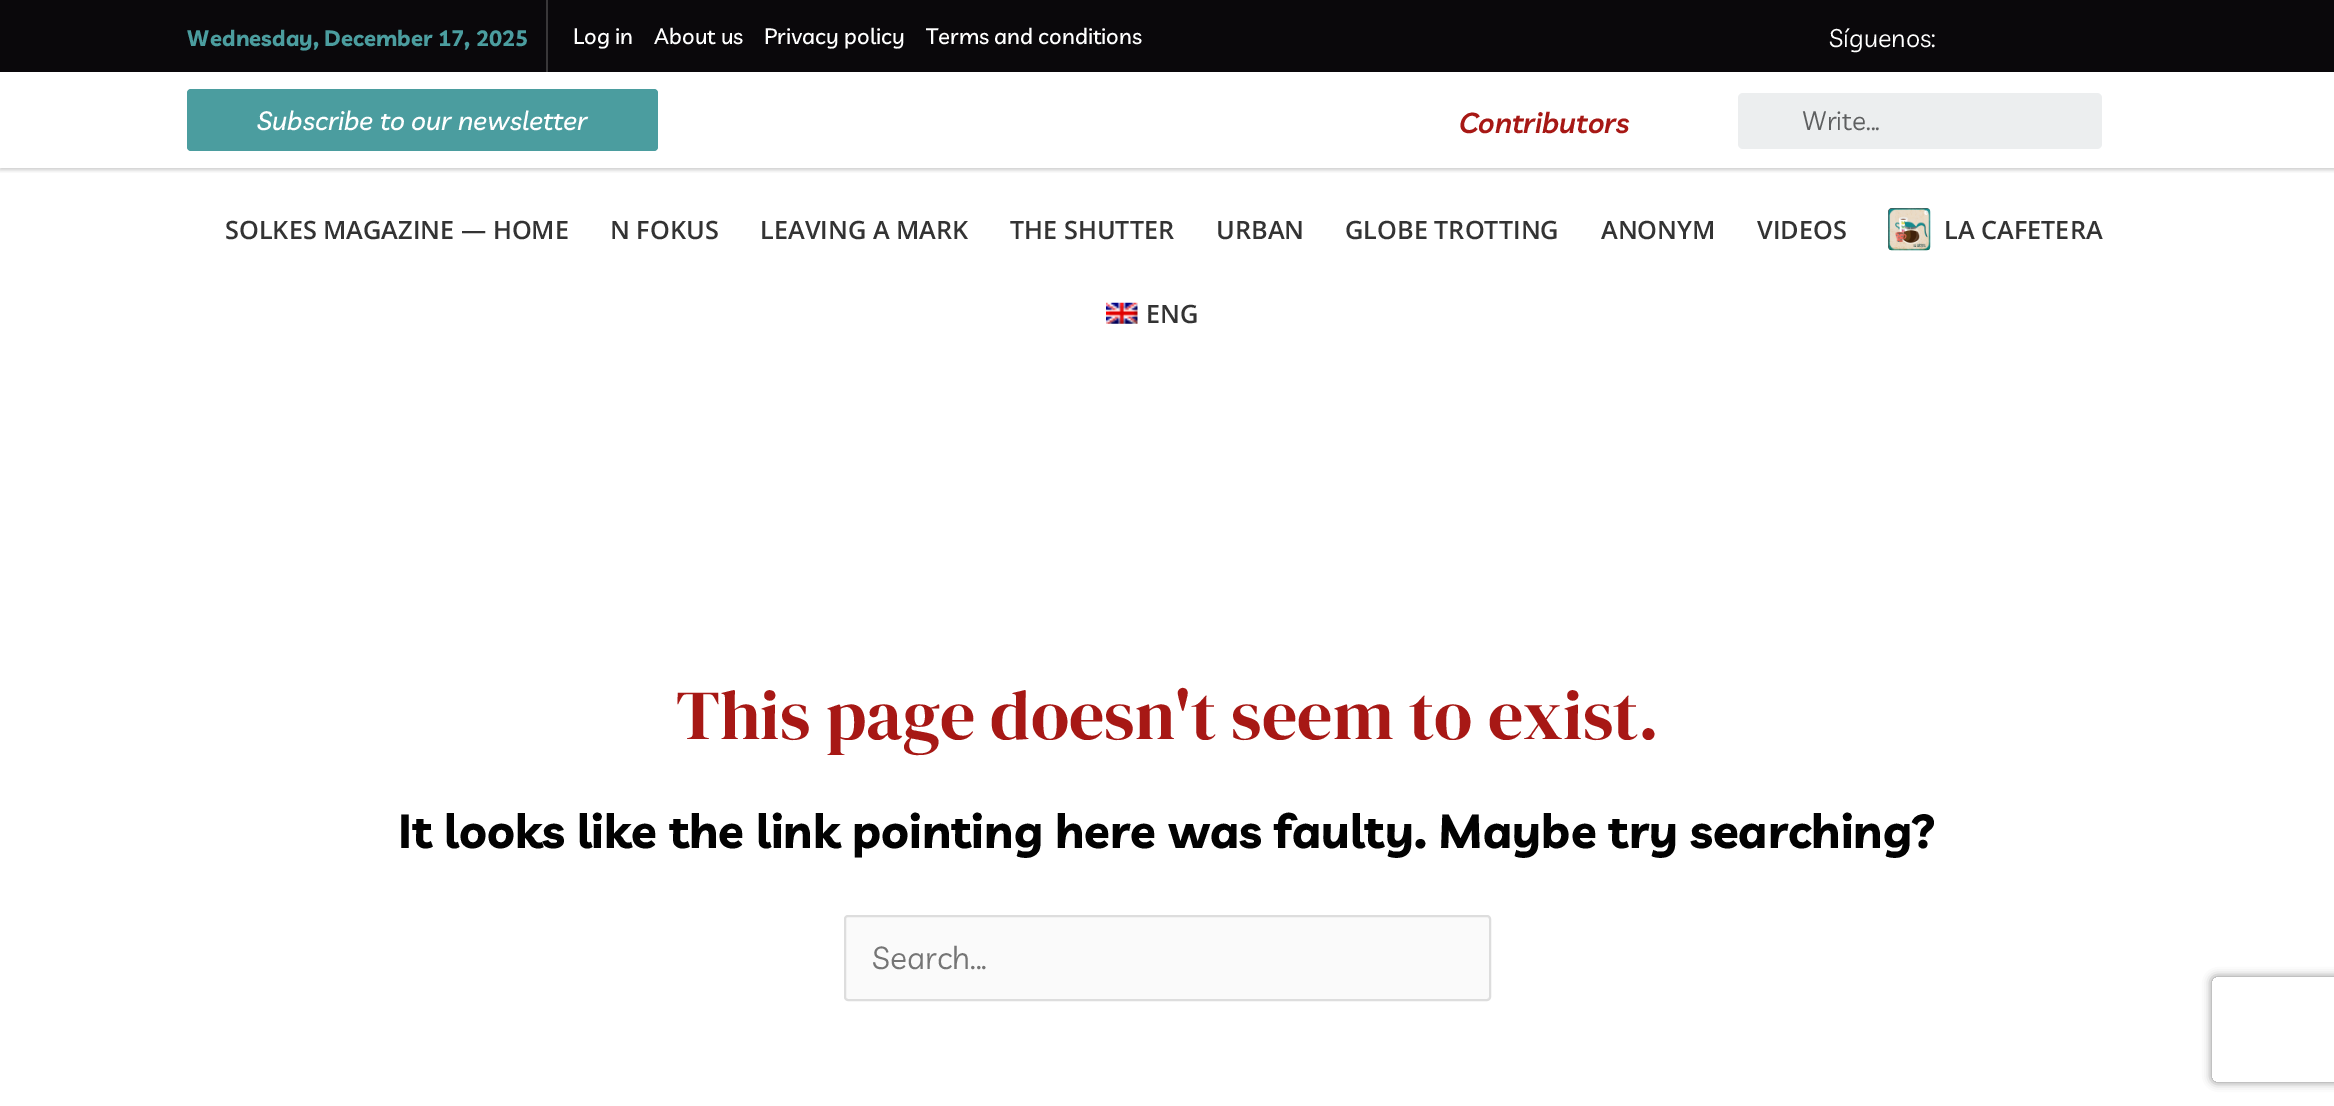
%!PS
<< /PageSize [2334 1106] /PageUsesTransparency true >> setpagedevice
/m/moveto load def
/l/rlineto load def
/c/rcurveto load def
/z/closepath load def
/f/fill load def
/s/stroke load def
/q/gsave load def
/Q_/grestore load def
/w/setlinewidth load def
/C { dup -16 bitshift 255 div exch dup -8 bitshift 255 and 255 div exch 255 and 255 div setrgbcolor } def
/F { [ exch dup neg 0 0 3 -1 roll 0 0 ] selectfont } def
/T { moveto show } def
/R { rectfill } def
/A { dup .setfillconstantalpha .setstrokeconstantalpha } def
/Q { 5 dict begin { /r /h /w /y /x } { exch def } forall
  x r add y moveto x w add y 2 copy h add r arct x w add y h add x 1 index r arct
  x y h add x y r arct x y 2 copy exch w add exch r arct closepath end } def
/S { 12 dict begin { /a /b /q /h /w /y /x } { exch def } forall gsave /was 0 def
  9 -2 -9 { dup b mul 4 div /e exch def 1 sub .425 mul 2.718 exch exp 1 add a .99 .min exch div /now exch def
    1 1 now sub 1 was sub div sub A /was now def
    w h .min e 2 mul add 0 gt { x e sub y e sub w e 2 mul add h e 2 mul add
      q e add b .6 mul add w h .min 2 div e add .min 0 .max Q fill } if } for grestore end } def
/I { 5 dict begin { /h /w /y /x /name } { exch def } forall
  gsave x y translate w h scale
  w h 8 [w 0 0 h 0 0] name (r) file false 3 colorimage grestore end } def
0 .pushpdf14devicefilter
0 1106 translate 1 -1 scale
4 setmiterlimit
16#FFFFFF C
0 0 2334 1106 R
16#0A080B C
0 0 2334 72 R
/NotoSans-ExtraBold 22 F
16#4B9D9F C
(W) 187 46 T
/Livvic-Bold 22 F
(ednesday, December 17, 2025) 210 46 T
16#393739 C
546 0 2 72 R
/Livvic-Medium 22 F
16#FFFFFF C
(Log in) 573 44 T
(About us) 654 44 T
(Privacy policy) 764 44 T
(Terms and conditions) 926 44 T
/Livvic-Regular 25.25 F
(Síguenos:) 1829 47 T
q
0 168 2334 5 rectclip
16#000000 C
0 74 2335 96 0 2 .2 S
Q_
16#4B9D9F C
187 89 471 62 4 Q f
/Livvic-MediumItalic 26.25 F
16#FFFFFF C
(Subscribe to our newsletter) 257 130 T
/Livvic-SemiBoldItalic 28.5 F
16#A71815 C
(Contributors) 1459 133 T
16#ECEEEF C
1738 93 364 56 5 Q f
/Livvic-Regular 26.25 F
16#5E5F60 C
(Write...) 1802 130 T
/OpenSans-SemiBold 25.25 F
16#333333 C
(SOLKES MAGAZINE — HOME) 225 239 T
(N FOKUS) 610 239 T
(LEAVING A MARK) 760 239 T
(THE SHUTTER) 1010 239 T
(URBAN) 1216 239 T
(GLOBE TROTTING) 1345 239 T
(ANONYM) 1601 239 T
(VIDEOS) 1757 239 T
16#A71815 C
1888 208 42 42 4 Q f
(1.rgb) 1888 208 43 43 I
16#333333 C
(LA CAFETERA) 1944 239 T
(2.rgb) 1106 302 32 22 I
(ENG) 1146 323 T
/DMSerifDisplay-Regular 70 F
16#A71815 C
(This page doesn't seem to exist.) 676 739 T
/Livvic-Bold 47.25 F
16#020202 C
(It looks like the link pointing here was faulty. Maybe try searching?) 398 848 T
16#FAFAFA C
845 916 645 84 3 Q q f Q_
16#DDDDDD C
2 w
s
/Livvic-Regular 31.5 F
16#757575 C
(Search...) 872 969 T
q
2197 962 m 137 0 l 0 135 l -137 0 l z 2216 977 m 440 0 l 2 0 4 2 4 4 c 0 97 l 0 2 -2 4 -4 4 c -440 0 l -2 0 -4 -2 -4 -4 c 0 -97 l 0 -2 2 -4 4 -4 c z eoclip newpath
16#808080 C
2212 977 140 105 4 4.5 1 S
Q_
.poppdf14devicefilter showpage
